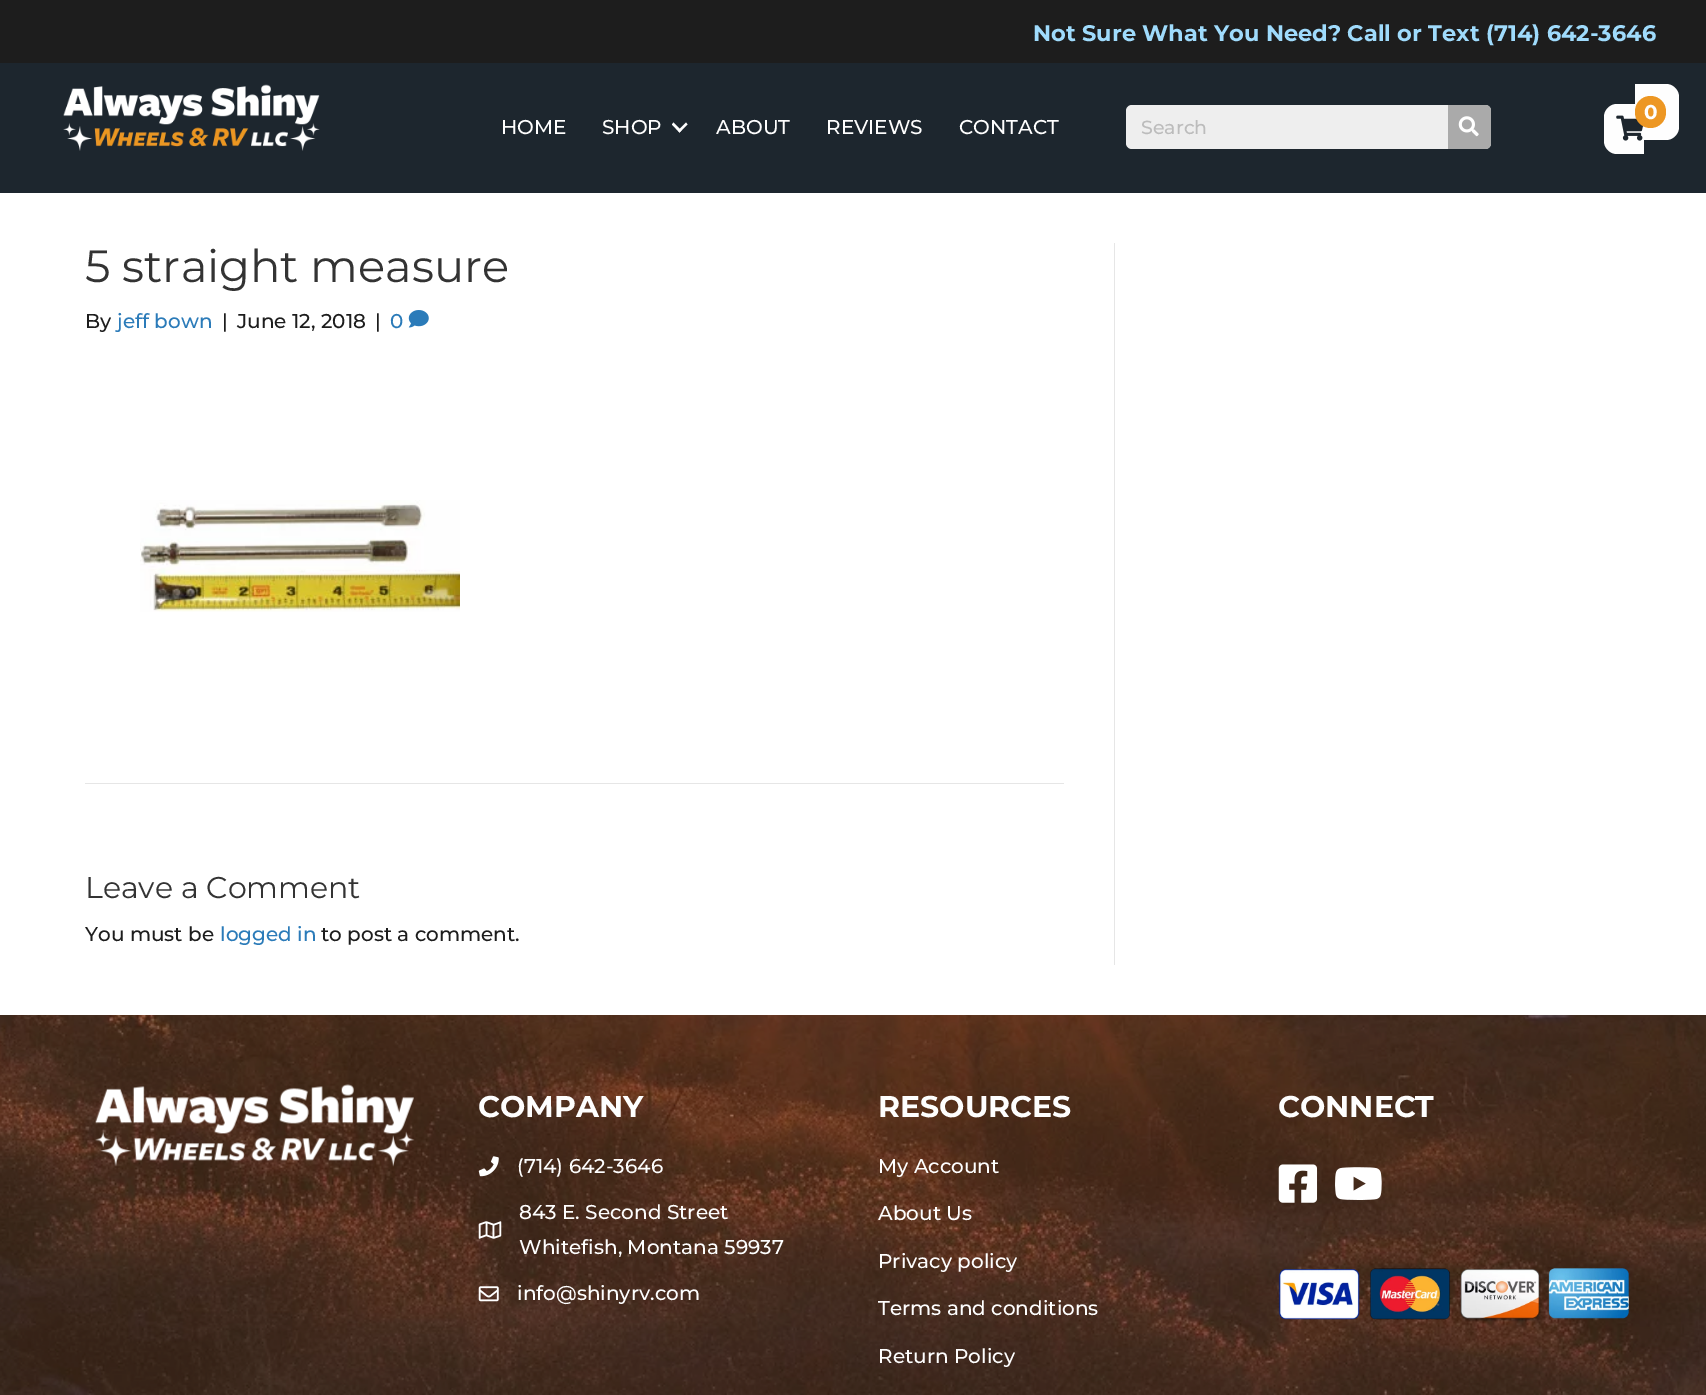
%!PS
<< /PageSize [1706 1395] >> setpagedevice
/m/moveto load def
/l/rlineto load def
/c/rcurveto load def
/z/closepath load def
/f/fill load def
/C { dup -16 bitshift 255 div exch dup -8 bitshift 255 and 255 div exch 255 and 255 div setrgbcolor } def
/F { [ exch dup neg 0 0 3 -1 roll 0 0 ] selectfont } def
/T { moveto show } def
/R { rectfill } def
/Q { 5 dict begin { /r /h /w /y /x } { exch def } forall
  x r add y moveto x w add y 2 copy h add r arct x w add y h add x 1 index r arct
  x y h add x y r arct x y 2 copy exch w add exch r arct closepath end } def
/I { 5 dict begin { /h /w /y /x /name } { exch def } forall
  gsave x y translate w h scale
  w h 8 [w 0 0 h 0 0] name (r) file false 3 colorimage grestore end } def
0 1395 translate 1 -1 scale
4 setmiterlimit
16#FFFFFF C
0 0 1706 1395 R
16#1D1D1D C
0 0 1706 63 R
/Montserrat-Bold 22.5 F
16#9FDBFC C
(Not Sure What You Need? Call or Text \(714\) 642-3646) 1033 41 T
16#1D262E C
0 63 1706 130 R
(1.rgb) 63 84 257 67 I
16#FEFEFE C
1617 104 m 27 0 l 0 50 l -27 0 l -7 0 -13 -6 -13 -13 c 0 -24 l 0 -7 6 -13 13 -13 c z f
1635 84 m 31 0 l 7 0 13 6 13 13 c 0 30 l 0 7 -6 13 -13 13 c -31 0 l z f
(2.rgb) 1616 115 27 26 I
16#ED9723 C
1635 96 31 32 15.5 Q f
/Montserrat-Bold 20 F
16#FEFEFE C
(0) 1644 119 T
/Montserrat-Medium 20 F
(HOME) 501 134 T
(SHOP) 602 134 T
686 122.5 m 1.5 2 l -8 8 l -1.5 -2 l z f
673.5 122.5 m 8 8 l -2 2 l -7.5 -8 l z f
(ABOUT) 716 134 T
(REVIEWS) 826 134 T
(CONTACT) 959 134 T
16#EEEEEE C
1126 105 365 44 6 Q f
/Montserrat-Medium 19 F
16#BCBCBC C
(Search) 1141 134 T
16#AAAAAA C
1448 105 m 37 0 l 3.5 0 6 2.5 6 6 c 0 32 l 0 3.5 -2.5 6 -6 6 c -37 0 l z f
(3.rgb) 1458 116 21 21 I
16#E6E6E6 C
1114 243 1 722 R
/Montserrat-Regular 45 F
16#333333 C
(5 straight measure) 85 282 T
/Montserrat-Medium 20 F
16#1D1D1D C
(By) 85 328 T
16#2B7BB9 C
(jeff bown) 117 328 T
16#1D1D1D C
(|) 222 328 T
(June 12, 2018) 237 328 T
(|) 375 328 T
16#2B7BB9 C
(0) 390 328 T
(4.rgb) 408 310 21 18 I
(5.rgb) 140 500 320 112 I
16#E6E6E6 C
85 783 979 1 R
/Montserrat-Regular 30 F
16#333333 C
(Leave a Comment) 85 898 T
/Montserrat-Medium 20 F
16#1D1D1D C
(You must be) 85 941 T
16#2B7BB9 C
(logged in) 220 941 T
16#1D1D1D C
(to post a comment.) 321 941 T
(6.rgb) 0 1015 1706 380 I
(7.rgb) 95 1084 320 83 I
/Montserrat-Bold 30 F
16#FEFEFE C
(COMPANY) 478 1117 T
(8.rgb) 478 1156 21 21 I
/Montserrat-Medium 20 F
(\(714\) 642-3646) 517 1173 T
(9.rgb) 478 1221 24 18 I
(843 E. Second Street) 519 1219 T
(Whitefish, Montana 59937) 519 1254 T
(10.rgb) 478 1286 21 16 I
(info@shinyrv.com) 517 1300 T
/Montserrat-Bold 30 F
(RESOURCES) 878 1117 T
/Montserrat-Medium 20 F
(My Account) 878 1173 T
(About Us) 878 1220 T
(Privacy policy) 878 1268 T
(Terms and conditions) 878 1315 T
(Return Policy) 878 1363 T
/Montserrat-Bold 30 F
(CONNECT) 1278 1117 T
(11.rgb) 1278 1164 40 39 I
(12.rgb) 1335 1167 47 33 I
(13.rgb) 1278 1268 351 54 I
showpage
